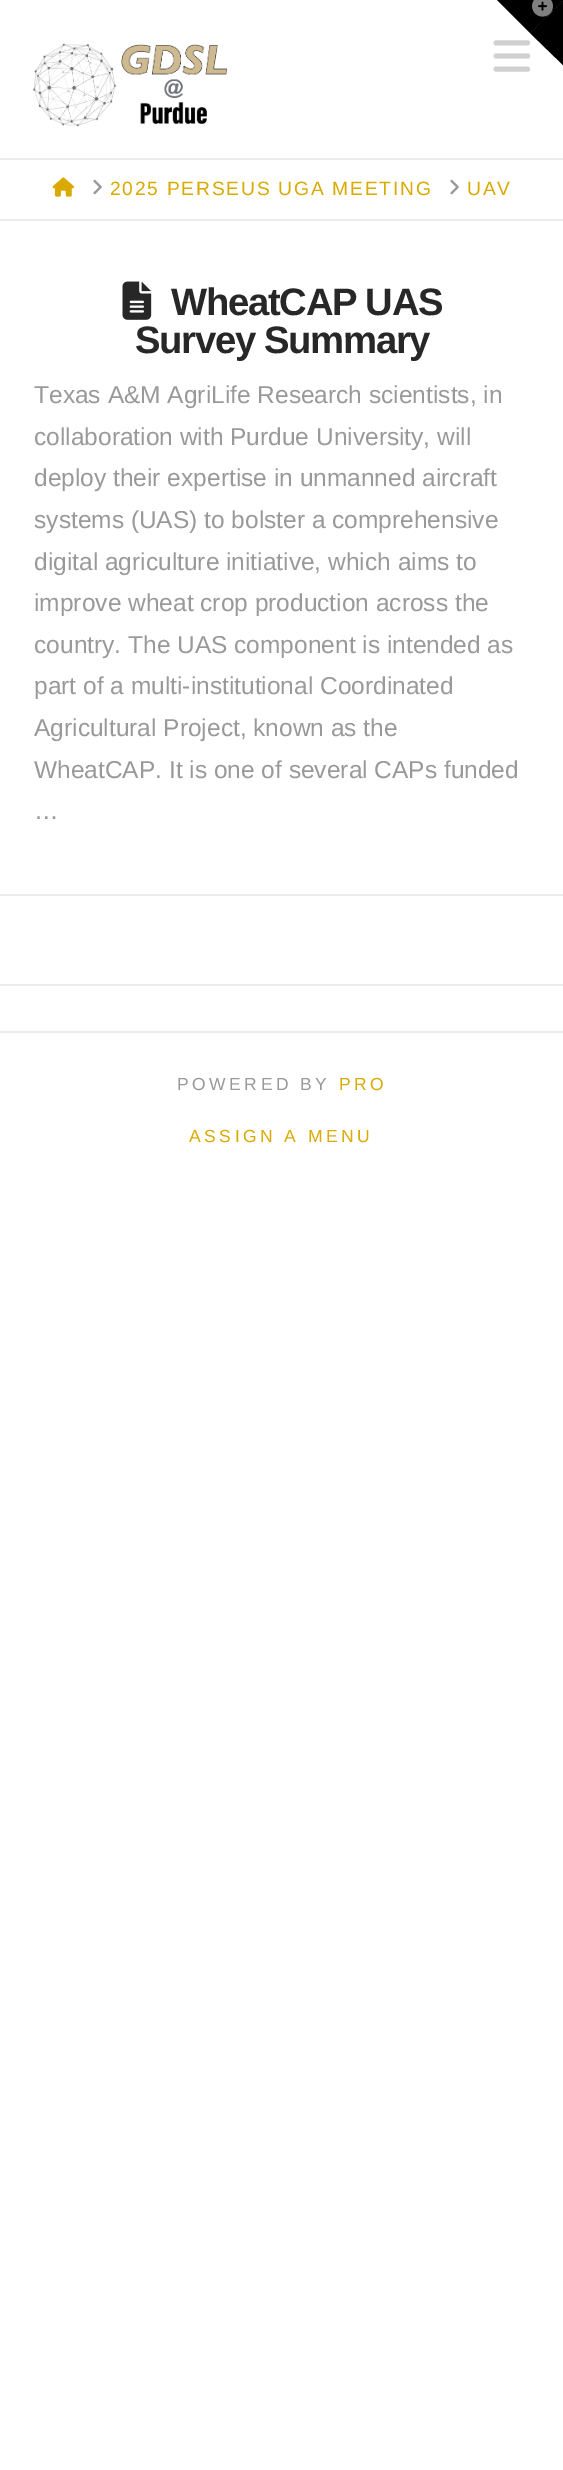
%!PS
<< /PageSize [563 2470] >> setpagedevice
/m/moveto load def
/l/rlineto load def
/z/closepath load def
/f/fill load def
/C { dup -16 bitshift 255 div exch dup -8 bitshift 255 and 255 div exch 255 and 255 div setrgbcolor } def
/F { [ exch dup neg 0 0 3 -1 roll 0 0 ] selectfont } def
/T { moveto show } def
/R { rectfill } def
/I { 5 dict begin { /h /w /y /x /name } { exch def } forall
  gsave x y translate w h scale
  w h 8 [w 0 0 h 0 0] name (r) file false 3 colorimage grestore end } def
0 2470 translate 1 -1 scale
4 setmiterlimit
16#FFFFFF C
0 0 563 2470 R
16#000000 C
497 0 m 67 0 l -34 33 l z f
(3.rgb) 493 40 38 32 I
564 0 m 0 66 l -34 -33 l z f
(1.rgb) 532 0 21 17 I
16#ECECEC C
0 158 563 2 R
(2.rgb) 33 43 195 84 I
0 219 563 2 R
(4.rgb) 52 177 23 20 I
(5.rgb) 93 179 9 16 I
/LiberationSans-Regular 19.25 F
16#DAAA00 C
110 195 m 1.75 0 (2025 PERSEUS UGA MEETING) ashow
(5.rgb) 450 179 9 16 I
467 195 m 1.75 0 (UAV) ashow
16#ECECEC C
0 894 563 2 R
(6.rgb) 122 281 30 39 I
/LiberationSans-Bold 38.25 F
16#272727 C
171 315 m -1.3 0 (WheatCAP UAS) ashow
135 353 m -1.3 0 (Survey Summary) ashow
/LiberationSans-Regular 24.5 F
16#999999 C
(Texas A&M AgriLife Research scientists, in) 34 403 T
(collaboration with Purdue University, will) 34 445 T
(deploy their expertise in unmanned aircraft) 34 486 T
(systems \(UAS\) to bolster a comprehensive) 34 528 T
(digital agriculture initiative, which aims to) 34 570 T
(improve wheat crop production across the) 34 611 T
(country. The UAS component is intended as) 34 653 T
(part of a multi-institutional Coordinated) 34 694 T
(Agricultural Project, known as the) 34 736 T
(WheatCAP. It is one of several CAPs funded) 34 778 T
(…) 34 819 T
16#ECECEC C
0 984 563 2 R
0 1031 563 2 R
/LiberationSans-Regular 17.5 F
16#999999 C
177 1090 m 3.5 0 (POWERED BY) ashow
16#DAAA00 C
339 1090 m 3.5 0 (PRO) ashow
189 1142 m 3.5 0 (ASSIGN A MENU) ashow
showpage
